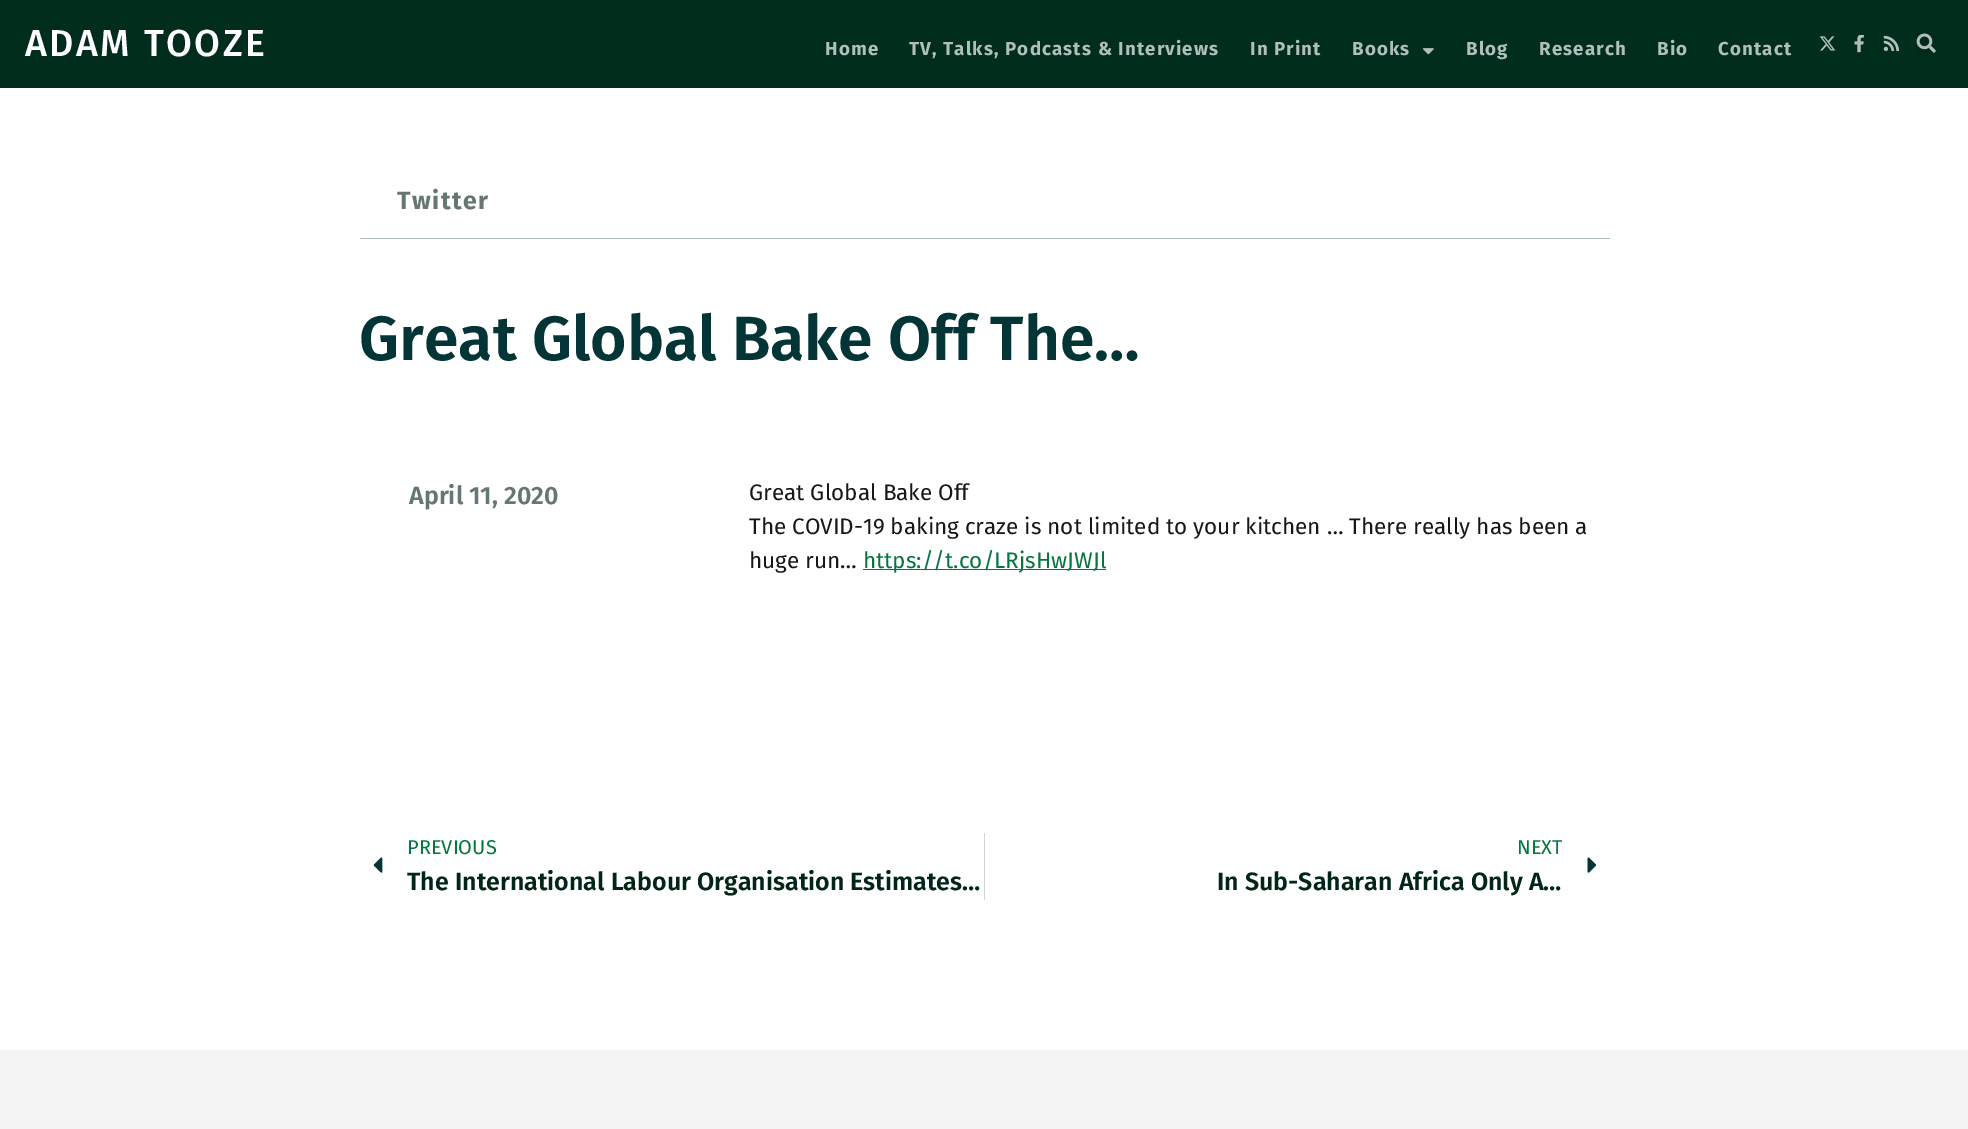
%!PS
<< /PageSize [1968 1129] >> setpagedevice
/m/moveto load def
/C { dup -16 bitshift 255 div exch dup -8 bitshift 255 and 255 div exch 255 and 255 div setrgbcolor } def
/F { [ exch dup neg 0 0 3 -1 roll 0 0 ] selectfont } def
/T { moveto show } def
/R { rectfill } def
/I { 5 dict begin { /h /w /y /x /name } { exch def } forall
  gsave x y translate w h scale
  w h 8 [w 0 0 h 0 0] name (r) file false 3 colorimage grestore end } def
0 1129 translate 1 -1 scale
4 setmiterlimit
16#FFFFFF C
0 0 1968 1129 R
16#002D1C C
0 0 1968 88 R
/FiraSans-Medium 37.5 F
16#FFFFFF C
25 56 m 2.4 0 (ADAM TOOZE) ashow
/FiraSans-Bold 18.75 F
16#B0BFBA C
825 55 m 1.1 0 (Home) ashow
909 55 m 1.1 0 (TV, Talks, Podcasts & Interviews) ashow
1250 55 m 1.1 0 (In Print) ashow
1352 55 m 1.1 0 (Books) ashow
(1.rgb) 1422 48 12 7 I
1466 55 m 1.1 0 (Blog) ashow
1539 55 m 1.1 0 (Research) ashow
1657 55 m 1.1 0 (Bio) ashow
1718 55 m 1.1 0 (Contact) ashow
(2.rgb) 1819 36 17 15 I
(3.rgb) 1854 35 10 18 I
(4.rgb) 1883 35 17 17 I
(5.rgb) 1916 33 20 20 I
16#AEBDB7 C
360 238 1250 1 R
/FiraSans-Bold 25 F
16#657673 C
397 209 m 1.5 0 (Twitter) ashow
/FiraSans-SemiBold 62.5 F
16#033537 C
(Great Global Bake Off The…) 359 360 T
/FiraSans-SemiBold 25 F
16#657673 C
(April 11, 2020) 409 504 T
/FiraSans-Regular 22.5 F
16#171717 C
(Great Global Bake Off) 749 500 T
(The COVID-19 baking craze is not limited to your kitchen … There really has been a) 749 534 T
(huge run…) 749 568 T
16#047641 C
863 569 243 1 R
(https://t.co/LRjsHwJWJl) 863 568 T
(6.rgb) 373 857 10 16 I
/FiraSans-Regular 20 F
(PREVIOUS) 407 854 T
/FiraSans-SemiBold 25 F
16#012615 C
(The International Labour Organisation Estimates…) 407 890 T
16#CDD7D7 C
984 833 1 67 R
/FiraSans-Regular 20 F
16#047641 C
(NEXT) 1517 854 T
/FiraSans-SemiBold 25 F
16#012615 C
(In Sub-Saharan Africa Only A…) 1217 890 T
(7.rgb) 1587 857 10 16 I
16#F4F4F4 C
0 1050 1968 79 R
showpage
